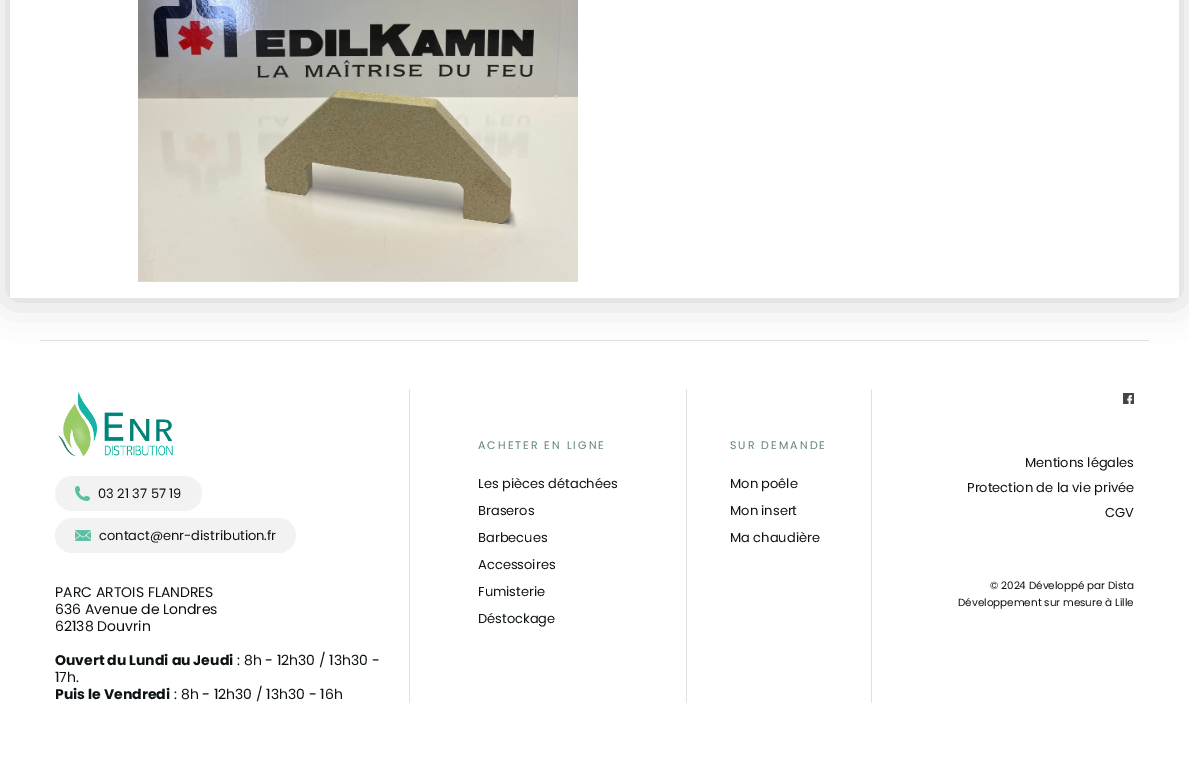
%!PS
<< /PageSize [1189 762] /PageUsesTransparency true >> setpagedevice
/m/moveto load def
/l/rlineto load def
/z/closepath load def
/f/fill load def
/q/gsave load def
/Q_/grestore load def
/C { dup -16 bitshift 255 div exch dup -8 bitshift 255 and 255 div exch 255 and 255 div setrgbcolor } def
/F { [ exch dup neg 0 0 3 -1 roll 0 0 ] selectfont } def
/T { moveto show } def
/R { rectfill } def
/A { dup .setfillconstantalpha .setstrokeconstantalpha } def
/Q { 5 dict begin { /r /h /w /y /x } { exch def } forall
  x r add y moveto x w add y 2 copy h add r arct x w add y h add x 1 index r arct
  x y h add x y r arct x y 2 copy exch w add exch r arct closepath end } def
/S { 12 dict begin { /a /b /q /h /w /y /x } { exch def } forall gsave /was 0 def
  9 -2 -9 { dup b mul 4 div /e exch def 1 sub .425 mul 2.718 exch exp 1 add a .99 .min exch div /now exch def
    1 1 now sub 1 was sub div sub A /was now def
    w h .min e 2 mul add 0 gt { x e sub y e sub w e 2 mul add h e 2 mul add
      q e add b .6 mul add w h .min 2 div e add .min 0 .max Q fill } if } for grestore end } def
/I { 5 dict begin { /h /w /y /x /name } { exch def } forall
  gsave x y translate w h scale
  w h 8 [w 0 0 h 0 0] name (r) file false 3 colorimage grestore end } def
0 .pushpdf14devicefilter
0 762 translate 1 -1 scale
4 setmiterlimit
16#FFFFFF C
0 0 1189 762 R
16#DEE2E6 C
40 340 1109 1 R
q
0 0 m 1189 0 l 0 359 l -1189 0 l z 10 -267 m 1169 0 l 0 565 l -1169 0 l z eoclip newpath
16#000000 C
10 -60 1169 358 0 20 .2 S
Q_
(1.rgb) 138 0 440 282 I
409 389 1 314 R
(2.rgb) 58 392 115 65 I
16#F2F2F2 C
55 476 147 35 17.5 Q f
(3.rgb) 75 486 15 15 I
/Poppins-Regular 13 F
16#0D1215 C
(03 21 37 57 19) 98 498 T
16#F2F2F2 C
55 518 241 35 17.5 Q f
(4.rgb) 75 530 16 11 I
16#0D1215 C
(contact@enr-distribution.fr) 99 540 T
/Poppins-Regular 14 F
(PARC ARTOIS FLANDRES) 55 597 T
(636 Avenue de Londres) 55 614 T
(62138 Douvrin) 55 631 T
/Poppins-Bold 14 F
(Ouvert du Lundi au Jeudi) 55 665 T
/Poppins-Regular 14 F
(: 8h - 12h30 / 13h30 -) 237 665 T
(17h.) 55 682 T
/Poppins-Bold 14 F
(Puis le Vendredi) 55 699 T
/Poppins-Regular 14 F
(: 8h - 12h30 / 13h30 - 16h) 174 699 T
16#DEE2E6 C
686 389 1 314 R
/Poppins-Regular 11 F
16#608181 C
478 449 m 2 0 (ACHETER EN LIGNE) ashow
/Poppins-Regular 13 F
16#0D1215 C
(Les pièces détachées) 478 488 T
(Braseros) 478 515 T
(Barbecues) 478 542 T
(Accessoires) 478 569 T
(Fumisterie) 478 596 T
(Déstockage) 478 623 T
16#DEE2E6 C
871 389 1 314 R
/Poppins-Regular 11 F
16#608181 C
730 449 m 2 0 (SUR DEMANDE) ashow
/Poppins-Regular 13 F
16#0D1215 C
(Mon poêle) 730 488 T
(Mon insert) 730 515 T
(Ma chaudière) 730 542 T
(5.rgb) 1123 393 11 11 I
(Mentions légales) 1025 467 T
(Protection de la vie privée) 967 492 T
(CGV) 1105 517 T
/Poppins-Regular 10.4 F
(© 2024 Développé par Dista) 990 589 T
(Développement sur mesure à Lille) 958 606 T
.poppdf14devicefilter showpage
